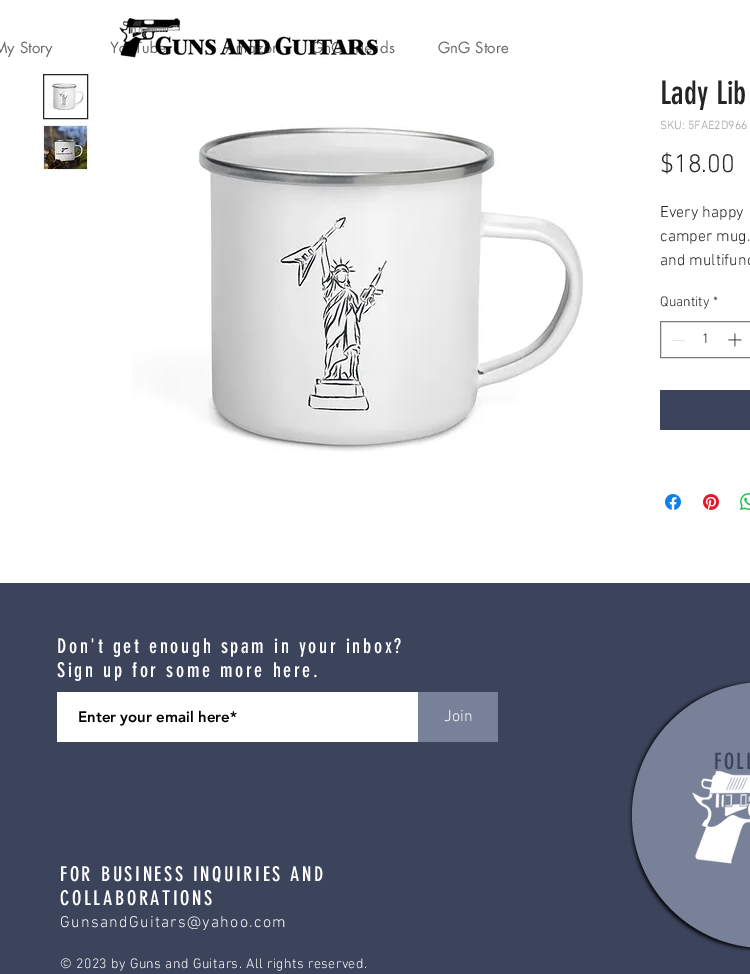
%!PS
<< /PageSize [750 974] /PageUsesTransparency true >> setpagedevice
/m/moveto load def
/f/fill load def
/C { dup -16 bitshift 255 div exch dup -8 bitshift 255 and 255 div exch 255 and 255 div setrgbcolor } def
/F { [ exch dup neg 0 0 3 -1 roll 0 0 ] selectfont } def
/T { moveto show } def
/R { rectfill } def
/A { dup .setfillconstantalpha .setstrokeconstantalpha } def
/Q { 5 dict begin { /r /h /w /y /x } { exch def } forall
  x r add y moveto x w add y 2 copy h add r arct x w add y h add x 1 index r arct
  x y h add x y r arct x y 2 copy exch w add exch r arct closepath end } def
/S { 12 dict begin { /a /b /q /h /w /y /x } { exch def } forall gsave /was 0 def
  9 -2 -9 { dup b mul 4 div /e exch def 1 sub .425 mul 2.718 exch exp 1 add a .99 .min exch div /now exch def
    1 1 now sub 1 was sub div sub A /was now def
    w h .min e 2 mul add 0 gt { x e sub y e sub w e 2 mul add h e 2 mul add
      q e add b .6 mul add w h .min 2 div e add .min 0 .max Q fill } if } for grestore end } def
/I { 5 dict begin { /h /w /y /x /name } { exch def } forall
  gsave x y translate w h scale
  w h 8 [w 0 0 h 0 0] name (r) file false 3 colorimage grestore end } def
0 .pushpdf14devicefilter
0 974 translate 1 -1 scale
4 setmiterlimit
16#FFFFFF C
0 0 750 974 R
/futura-Regular 15 F
16#696969 C
(YouTube) 110 53 T
(1.rgb) 119 18 259 40 I
(My Story) -6 53 T
(ds) 380 53 T
(GnG Store) 438 53 T
16#242424 C
43.5 74.5 44 44 rectstroke
(2.rgb) 48 83 36 28 I
16#F1F1F1 C
43.5 125.5 44 44 rectstroke
(3.rgb) 44 126 43 43 I
(4.rgb) 132 126 451 326 I
/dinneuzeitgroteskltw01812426-Regular 32 F
16#242424 C
(Lady Lib) 660 104 T
/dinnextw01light-Light 12 F
16#999997 C
(SKU: 5FAE2D966) 660 129 T
/dinnextw01light-Light 26 F
16#242424 C
($18.00) 660 172 T
/dinnextw01light-Light 16 F
(Every happy) 660 217 T
(camper mug.) 660 241 T
(and multifunc) 660 265 T
/dinnextw01light-Light 14 F
(Quantity) 660 306 T
(*) 713 306 T
16#7C7C7C C
660.5 321.5 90 36 rectstroke
16#E3E3E3 C
672 340 13 1 R
16#242424 C
(1) 702 343 T
(5.rgb) 728 333 14 14 I
16#3C445C C
660 390 90 40 R
(6.rgb) 665 494 16 16 I
(7.rgb) 703 494 16 16 I
(8.rgb) 740 493 10 17 I
0 583 750 391 R
/dinneuzeitgroteskltw01812426-Regular 20 F
16#FFFFFF C
57 653 m 2.6 0 (Don't get enough spam in your inbox?) ashow
57 677 m 2.6 0 (Sign up for some more here.) ashow
57 692 361 50 R
/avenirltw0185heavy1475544-Black 15 F
16#000000 C
(Enter your email here*) 78 722 T
16#798199 C
418 692 80 50 R
/dinnextw01light-Light 16 F
16#FFFFFF C
(Join) 444 721 T
16#000000 C
632 683 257 266 133 2 1 S
16#798199 C
632 682 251 266 133 Q f
(9.rgb) 692 770 58 94 I
/dinneuzeitgroteskltw01812426-Regular 22 F
16#3C445C C
714 769 m 2 0 (FOLL) ashow
/dinneuzeitgroteskltw01812426-Regular 20 F
16#FFFFFF C
60 881 m 2.6 0 (FOR BUSINESS INQUIRIES AND) ashow
60 905 m 2.6 0 (COLLABORATIONS) ashow
/dinnextw01light-Light 16 F
60 927 m 1.25 0 (GunsandGuitars@yahoo.com) ashow
/dinnextw01light-Light 14 F
60 968 m .4 0 (© 2023 by Guns and Guitars. All rights reserved.) ashow
.poppdf14devicefilter showpage
